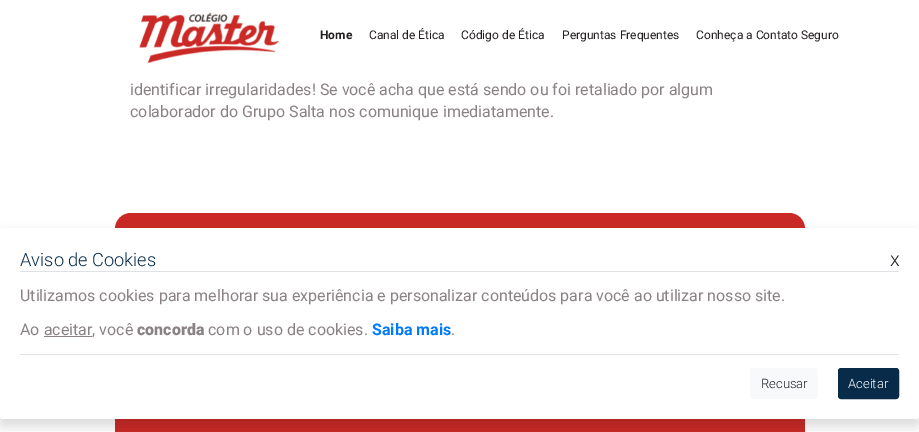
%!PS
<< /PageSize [919 432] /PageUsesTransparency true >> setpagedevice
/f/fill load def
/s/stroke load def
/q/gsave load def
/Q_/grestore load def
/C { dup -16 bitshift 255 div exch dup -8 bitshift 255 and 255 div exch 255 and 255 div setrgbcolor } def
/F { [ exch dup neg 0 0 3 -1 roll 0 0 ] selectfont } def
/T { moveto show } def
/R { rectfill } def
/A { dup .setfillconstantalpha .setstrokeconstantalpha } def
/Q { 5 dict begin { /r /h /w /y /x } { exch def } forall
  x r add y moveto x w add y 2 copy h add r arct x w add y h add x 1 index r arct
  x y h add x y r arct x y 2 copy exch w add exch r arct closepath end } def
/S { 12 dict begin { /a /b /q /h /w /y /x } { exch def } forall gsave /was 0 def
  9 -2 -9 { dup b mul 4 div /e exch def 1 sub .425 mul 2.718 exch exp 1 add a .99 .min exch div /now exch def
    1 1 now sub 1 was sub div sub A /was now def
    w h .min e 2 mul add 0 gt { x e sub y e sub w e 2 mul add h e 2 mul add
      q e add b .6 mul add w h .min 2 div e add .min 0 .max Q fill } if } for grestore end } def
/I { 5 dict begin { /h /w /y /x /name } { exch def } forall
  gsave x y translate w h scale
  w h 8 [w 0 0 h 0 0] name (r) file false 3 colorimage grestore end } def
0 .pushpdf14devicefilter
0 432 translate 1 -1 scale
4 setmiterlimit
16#FFFFFF C
0 0 919 432 R
(1.rgb) 139 12 140 51 I
/Roboto-Bold 12 F
16#231F20 C
(Home) 320 39 T
/Roboto-Regular 12 F
(Canal de Ética) 369 39 T
(Código de Ética) 461 39 T
(Perguntas Frequentes) 562 39 T
(Conheça a Contato Seguro) 696 39 T
/Roboto-Regular 16 F
16#8A8284 C
(identificar irregularidades! Se você acha que está sendo ou foi retaliado por algum) 130 95 T
(colaborador do Grupo Salta nos comunique imediatamente.) 130 117 T
16#CA2926 C
115 213 690 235 16 Q f
16#000000 C
0 235 919 191 3 6.5 .15 S
16#FFFFFF C
0 228 919 191 3 Q f
16#DEE2E6 C
20 354 879 1 R
20 271 879 1 R
/Roboto-Light 18.25 F
16#072B49 C
(Aviso de Cookies) 20 266 T
/Roboto-Light 20 F
16#212529 C
(x) 890 266 T
/Roboto-Regular 16 F
16#8A8284 C
(Utilizamos cookies para melhorar sua experiência e personalizar conteúdos para você ao utilizar nosso site.) 20 301 T
(Ao aceitar, você) 20 335 T
/Roboto-Black 16 F
(concorda) 137 335 T
/Roboto-Regular 16 F
(com o uso de cookies.) 208 335 T
/Roboto-Bold 16 F
16#007BFF C
(Saiba mais) 372 335 T
/Roboto-Regular 16 F
16#8A8284 C
(.) 451 335 T
44 336 48 1 R
16#F8F9FA C
750 368 68 31 3 Q f
/Roboto-Light 13 F
16#212529 C
(Recusar) 761 388 T
16#072B49 C
838.5 368.5 60 30 2.5 Q q f Q_
s
16#FFFFFF C
(Aceitar) 848 388 T
.poppdf14devicefilter showpage
